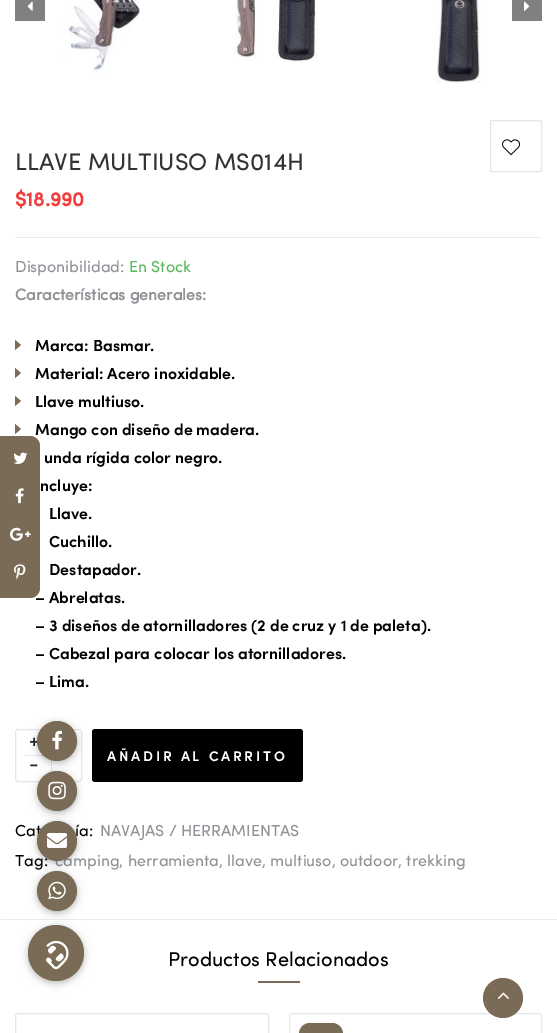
%!PS
<< /PageSize [557 1033] /PageUsesTransparency true >> setpagedevice
/m/moveto load def
/l/rlineto load def
/c/rcurveto load def
/z/closepath load def
/f/fill load def
/s/stroke load def
/C { dup -16 bitshift 255 div exch dup -8 bitshift 255 and 255 div exch 255 and 255 div setrgbcolor } def
/F { [ exch dup neg 0 0 3 -1 roll 0 0 ] selectfont } def
/T { moveto show } def
/R { rectfill } def
/A { dup .setfillconstantalpha .setstrokeconstantalpha } def
/O { newpath 0 360 arc closepath } def
/Q { 5 dict begin { /r /h /w /y /x } { exch def } forall
  x r add y moveto x w add y 2 copy h add r arct x w add y h add x 1 index r arct
  x y h add x y r arct x y 2 copy exch w add exch r arct closepath end } def
/S { 12 dict begin { /a /b /q /h /w /y /x } { exch def } forall gsave /was 0 def
  9 -2 -9 { dup b mul 4 div /e exch def 1 sub .425 mul 2.718 exch exp 1 add a .99 .min exch div /now exch def
    1 1 now sub 1 was sub div sub A /was now def
    w h .min e 2 mul add 0 gt { x e sub y e sub w e 2 mul add h e 2 mul add
      q e add b .6 mul add w h .min 2 div e add .min 0 .max Q fill } if } for grestore end } def
/I { 5 dict begin { /h /w /y /x /name } { exch def } forall
  gsave x y translate w h scale
  w h 8 [w 0 0 h 0 0] name (r) file false 3 colorimage grestore end } def
0 .pushpdf14devicefilter
0 1033 translate 1 -1 scale
4 setmiterlimit
16#FFFFFF C
0 0 557 1033 R
16#808080 C
15 0 30 21 R
(1.rgb) 27 1 6 10 I
(2.rgb) 63 0 77 75 I
(3.rgb) 234 0 85 63 I
(4.rgb) 436 0 46 83 I
512 0 30 21 R
(5.rgb) 524 1 6 10 I
/Sofia-Regular 24 F
16#333333 C
(LLAVE MULTIUSO MS014H) 15 170 T
16#E4E6EC C
490.5 120.5 51 51 1.5 Q s
(6.rgb) 502 139 18 17 I
16#EBEBEB C
15 237 527 1 R
/Sofia-Bold 20 F
16#F33C3C C
($18.990) 15 206 T
/Sofia-Regular 16 F
16#909297 C
(Disponibilidad:) 15 272 T
16#5CB85C C
(En Stock) 129 272 T
/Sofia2-Bold 16 F
16#909297 C
(Características generales:) 15 300 T
16#796B55 C
15 350 m 0 -10 l 6 5 l z f
/Sofia-SemiBold 16 F
16#000000 C
(Marca: Basmar.) 35 351 T
16#796B55 C
15 378 m 0 -10 l 6 5 l z f
16#000000 C
(Material: Acero inoxidable.) 35 379 T
16#796B55 C
15 406 m 0 -10 l 6 5 l z f
16#000000 C
(Llave multiuso.) 35 407 T
16#796B55 C
15 434 m 0 -10 l 6 5 l z f
16#000000 C
(Mango con diseño de madera.) 35 435 T
(unda rígida color negro.) 44 463 T
(ncluye:) 40 491 T
(Llave.) 49 519 T
(Cuchillo.) 49 547 T
(Destapador.) 49 575 T
(– Abrelatas.) 35 603 T
(– 3 diseños de atornilladores \(2 de cruz y 1 de paleta\).) 35 631 T
(– Cabezal para colocar los atornilladores.) 35 659 T
(– Lima.) 35 687 T
16#E4E6EC C
15.5 729.5 66 52 2.5 Q s
24 755 20 1 R
/Sofia-Regular 20 F
16#232529 C
(+) 29 747 T
(-) 29 770 T
16#E4E6EC C
51 760 1 12 R
16#000000 C
92 729 211 53 3 Q f
/Sofia-SemiBold 14 F
16#FFFFFF C
107 761 m 2.75 0 (AÑADIR AL CARRITO) ashow
/Sofia-Regular 16 F
16#000000 C
(Cat) 15 836 T
(ía:) 75 836 T
16#909297 C
(NAVAJAS / HERRAMIENTAS) 100 836 T
16#000000 C
(Tag:) 15 866 T
16#909297 C
(camping, herramienta, llave, multiuso, outdoor, trekking) 55 866 T
16#EBEBEB C
1 919 556 1 R
/Sofia-Regular 20 F
16#000000 C
(Productos Relacionados) 168 966 T
16#796B55 C
258 981 42 2 R
16#E4E6EC C
15.5 1013.5 253 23 2.5 Q s
289.5 1013.5 252 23 2.5 Q s
16#796B55 C
299 1023 44 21 11 Q f
0 436 m 30 0 l 5.5 0 10 4.5 10 10 c 0 142 l 0 5.5 -4.5 10 -10 10 c -30 0 l z f
(7.rgb) 13 452 15 12 I
(8.rgb) 15 488 9 16 I
(9.rgb) 10 527 21 14 I
(10.rgb) 14 564 12 16 I
503 998 20 O f
(11.rgb) 497 992 12 7 I
16#000000 C
37 873 40 40 20 5 .12 S
37 873 40 40 20 2.5 .16 S
16#796B55 C
57 891 20 O f
16#000000 C
37 823 40 40 20 5 .12 S
37 823 40 40 20 2.5 .16 S
16#796B55 C
57 841 20 O f
16#000000 C
37 773 40 40 20 5 .12 S
37 773 40 40 20 2.5 .16 S
16#796B55 C
57 791 20 O f
16#000000 C
37 723 40 40 20 5 .12 S
37 723 40 40 20 2.5 .16 S
16#796B55 C
57 741 20 O f
(12.rgb) 52 730 10 20 I
(13.rgb) 48 781 18 19 I
(14.rgb) 47 833 20 15 I
(15.rgb) 48 881 18 19 I
16#000000 C
28 927 56 56 28 5 .12 S
28 927 56 56 28 2.5 .16 S
16#796B55 C
56 953 28 O f
(16.rgb) 46 940 23 30 I
.poppdf14devicefilter showpage
